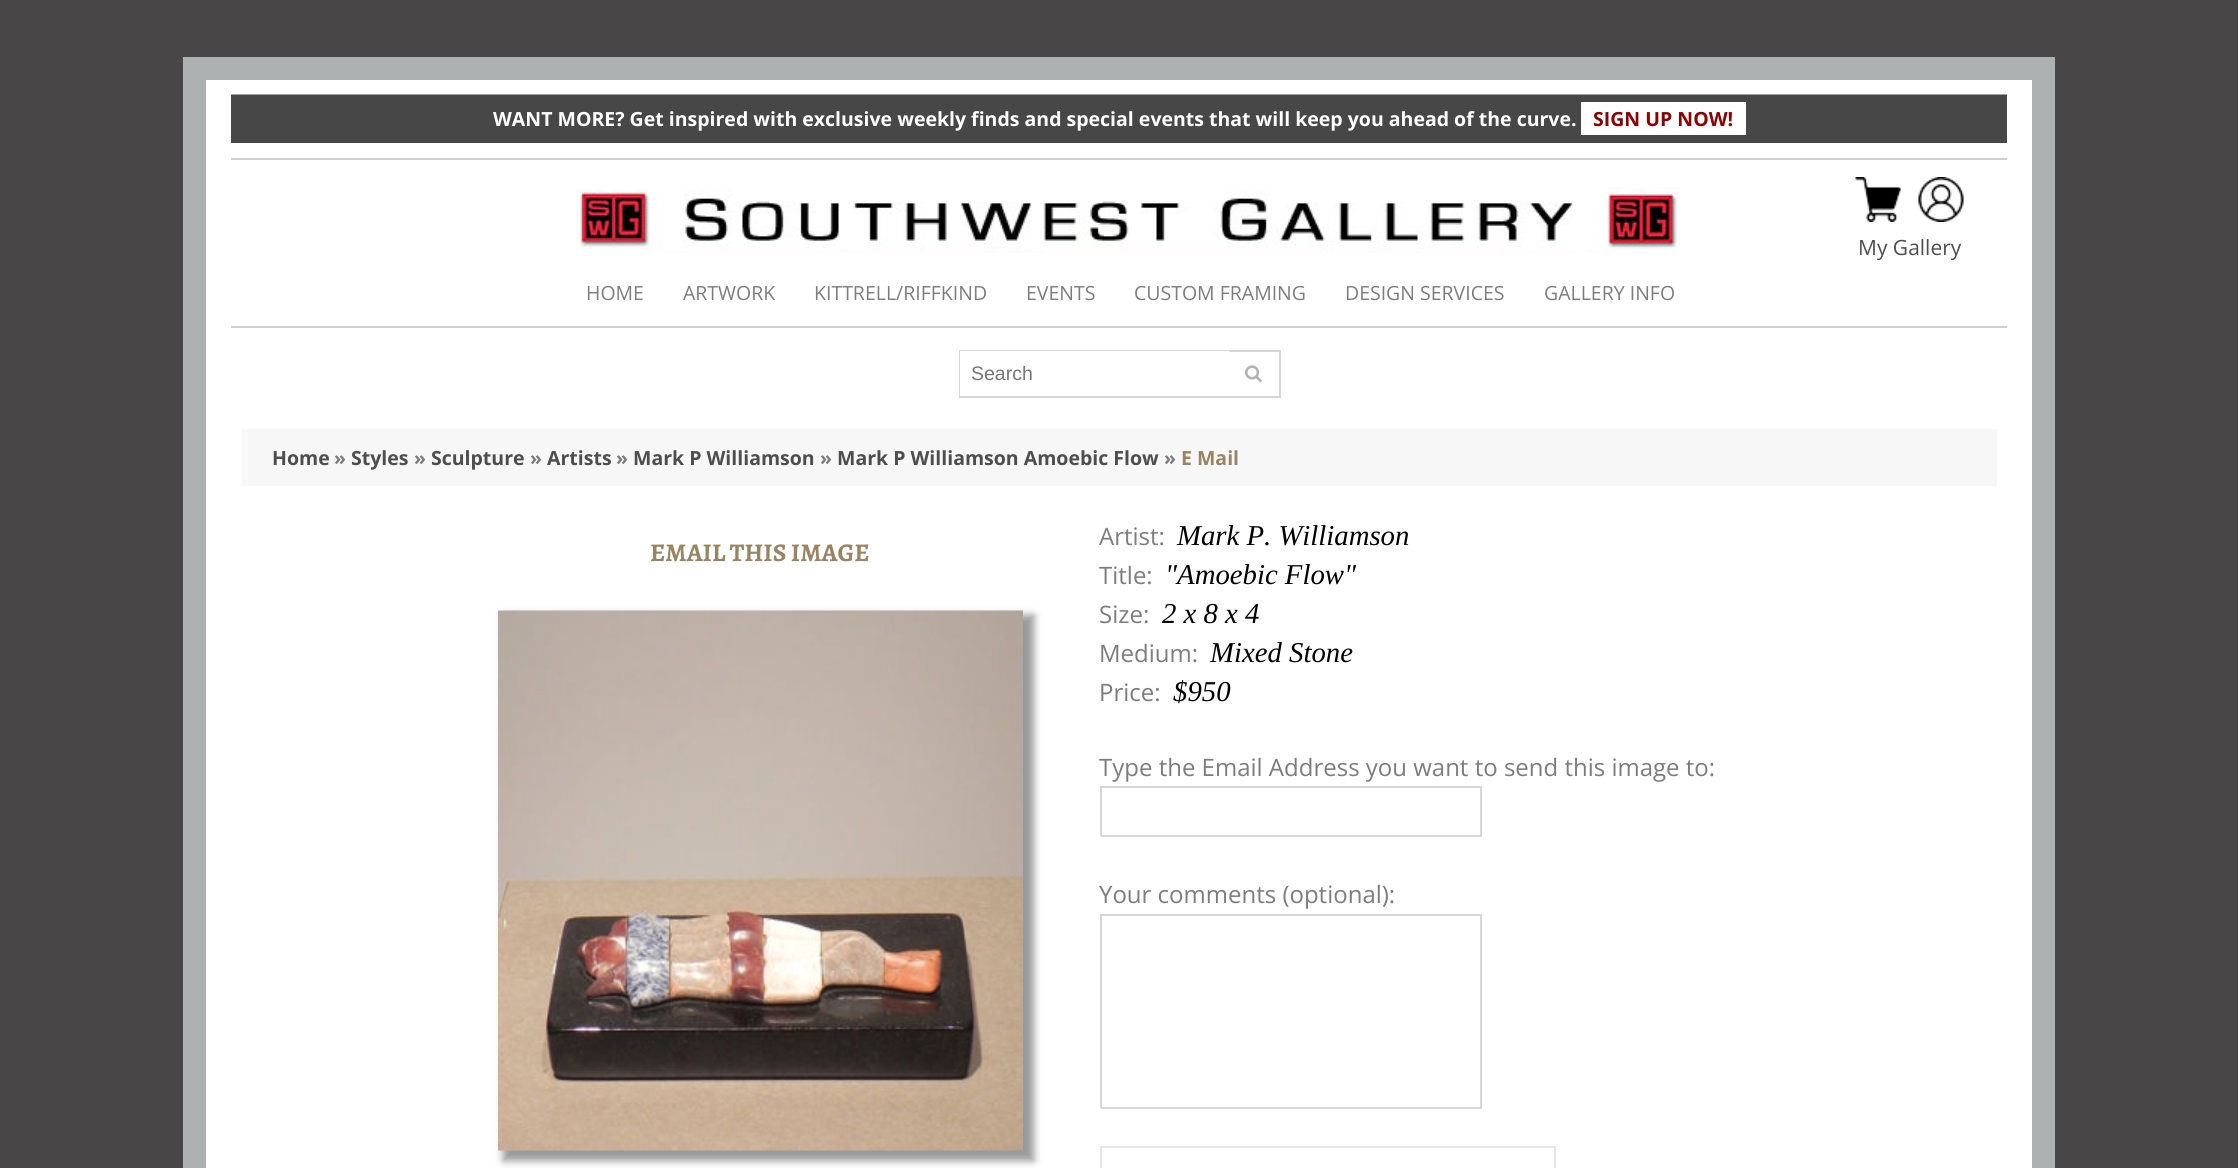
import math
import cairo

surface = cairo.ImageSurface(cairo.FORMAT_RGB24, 2238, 1168)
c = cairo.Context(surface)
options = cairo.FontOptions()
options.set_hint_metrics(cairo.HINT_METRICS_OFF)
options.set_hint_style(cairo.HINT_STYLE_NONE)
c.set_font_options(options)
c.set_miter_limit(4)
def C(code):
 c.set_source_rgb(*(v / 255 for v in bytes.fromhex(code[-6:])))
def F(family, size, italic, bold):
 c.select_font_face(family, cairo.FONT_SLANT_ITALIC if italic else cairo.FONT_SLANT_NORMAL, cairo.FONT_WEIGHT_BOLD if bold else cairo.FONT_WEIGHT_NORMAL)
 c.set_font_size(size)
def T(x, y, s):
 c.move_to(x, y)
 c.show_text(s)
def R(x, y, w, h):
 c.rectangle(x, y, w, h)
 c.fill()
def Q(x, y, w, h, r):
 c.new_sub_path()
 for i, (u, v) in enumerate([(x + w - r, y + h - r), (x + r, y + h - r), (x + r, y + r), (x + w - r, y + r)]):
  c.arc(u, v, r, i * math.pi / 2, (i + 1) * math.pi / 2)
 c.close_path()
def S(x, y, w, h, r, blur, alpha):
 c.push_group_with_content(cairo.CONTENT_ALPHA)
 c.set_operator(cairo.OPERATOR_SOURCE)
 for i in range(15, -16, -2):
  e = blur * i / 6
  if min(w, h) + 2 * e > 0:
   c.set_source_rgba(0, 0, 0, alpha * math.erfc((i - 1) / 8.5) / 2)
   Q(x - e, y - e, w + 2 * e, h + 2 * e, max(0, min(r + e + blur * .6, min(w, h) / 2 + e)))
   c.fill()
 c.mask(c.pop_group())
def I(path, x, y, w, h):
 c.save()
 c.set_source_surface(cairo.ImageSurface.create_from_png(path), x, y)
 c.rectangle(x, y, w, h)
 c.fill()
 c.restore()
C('484646')
c.paint()
C('ffffff')
c.rectangle(194.5,68.5,1849,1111)
c.fill_preserve()
C('adb1b1')
c.set_line_width(23)
c.stroke()
C('484747')
R(231,95,1776,48)
I('1.png',231,94,1776,1)
F('Open Sans',19.5,0,1)
C('ffffff')
T(493,126,'WANT MORE? Get inspired with exclusive weekly finds and special events that will keep you ahead of the curve.')
R(1581,102,165,33)
C('8b0000')
T(1593,126,'SIGN UP NOW!')
C('d1d1d1')
R(231,158,1776,2)
R(231,326,1776,2)
I('2.png',576,187,1104,66)
I('3.png',1855,177,46,45)
I('4.png',1918,177,46,45)
F('Open Sans',21,0,0)
C('4e4e4e')
T(1858,255,'My Gallery')
F('Open Sans',19.5,0,0)
C('7d7d7d')
T(586,300,'HOME')
T(683,300,'ARTWORK')
T(814,300,'KITTRELL/RIFFKIND')
T(1026,300,'EVENTS')
T(1134,300,'CUSTOM FRAMING')
T(1345,300,'DESIGN SERVICES')
T(1544,300,'GALLERY INFO')
c.rectangle(960,351,320,46)
C('d7d7d7')
c.set_line_width(2)
c.stroke()
C('ffffff')
R(960,351,269,45)
F('Liberation Sans',19.5,0,0)
C('757575')
T(971,380,'Search')
I('5.png',1245,365,17,17)
C('f7f7f7')
R(242,429,1755,57)
F('Open Sans',19.5,0,1)
C('4e4e4e')
T(272,465,'Home')
C('7d7d7d')
T(334,465,'»')
C('4e4e4e')
T(351,465,'Styles')
C('7d7d7d')
T(414,465,'»')
C('4e4e4e')
T(431,465,'Sculpture')
C('7d7d7d')
T(530,465,'»')
C('4e4e4e')
T(547,465,'Artists')
C('7d7d7d')
T(616,465,'»')
C('4e4e4e')
T(633,465,'Mark P Williamson')
C('7d7d7d')
T(820,465,'»')
C('4e4e4e')
T(837,465,'Mark P Williamson Amoebic Flow')
C('7d7d7d')
T(1164,465,'»')
C('978564')
T(1181,465,'E Mail')
F('Alegreya SC',25.5,0,1)
T(650,561,'EMAIL THIS IMAGE')
C('999999')
S(503,615,531,546,0,4,1)
I('6.png',498,610,525,541)
F('Open Sans',24,0,0)
C('7d7d7d')
T(1099,545,'Artist:')
F('Liberation Serif',28.75,1,0)
C('000000')
T(1177,545,'Mark P. Williamson')
F('Open Sans',24,0,0)
C('7d7d7d')
T(1099,584,'Title:')
F('Liberation Serif',28.75,1,0)
C('000000')
T(1165,584,'"Amoebic Flow"')
F('Open Sans',24,0,0)
C('7d7d7d')
T(1099,623,'Size:')
F('Liberation Serif',28.75,1,0)
C('000000')
T(1162,623,'2 x 8 x 4')
F('Open Sans',24,0,0)
C('7d7d7d')
T(1099,662,'Medium:')
F('Liberation Serif',28.75,1,0)
C('000000')
T(1210,662,'Mixed Stone')
F('Open Sans',24,0,0)
C('7d7d7d')
T(1099,701,'Price:')
F('Liberation Serif',28.75,1,0)
C('000000')
T(1173,701,'$950')
F('Open Sans',24,0,0)
C('7d7d7d')
T(1099,776,'Type the Email Address you want to send this image to:')
c.rectangle(1101,787,380,49)
C('d7d7d7')
c.stroke()
C('7d7d7d')
T(1099,903,'Your comments (optional):')
c.rectangle(1101,915,380,193)
C('d7d7d7')
c.stroke()
c.rectangle(1101,1147,454,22)
C('e6e6e6')
c.stroke()
surface.write_to_png('o.png')
